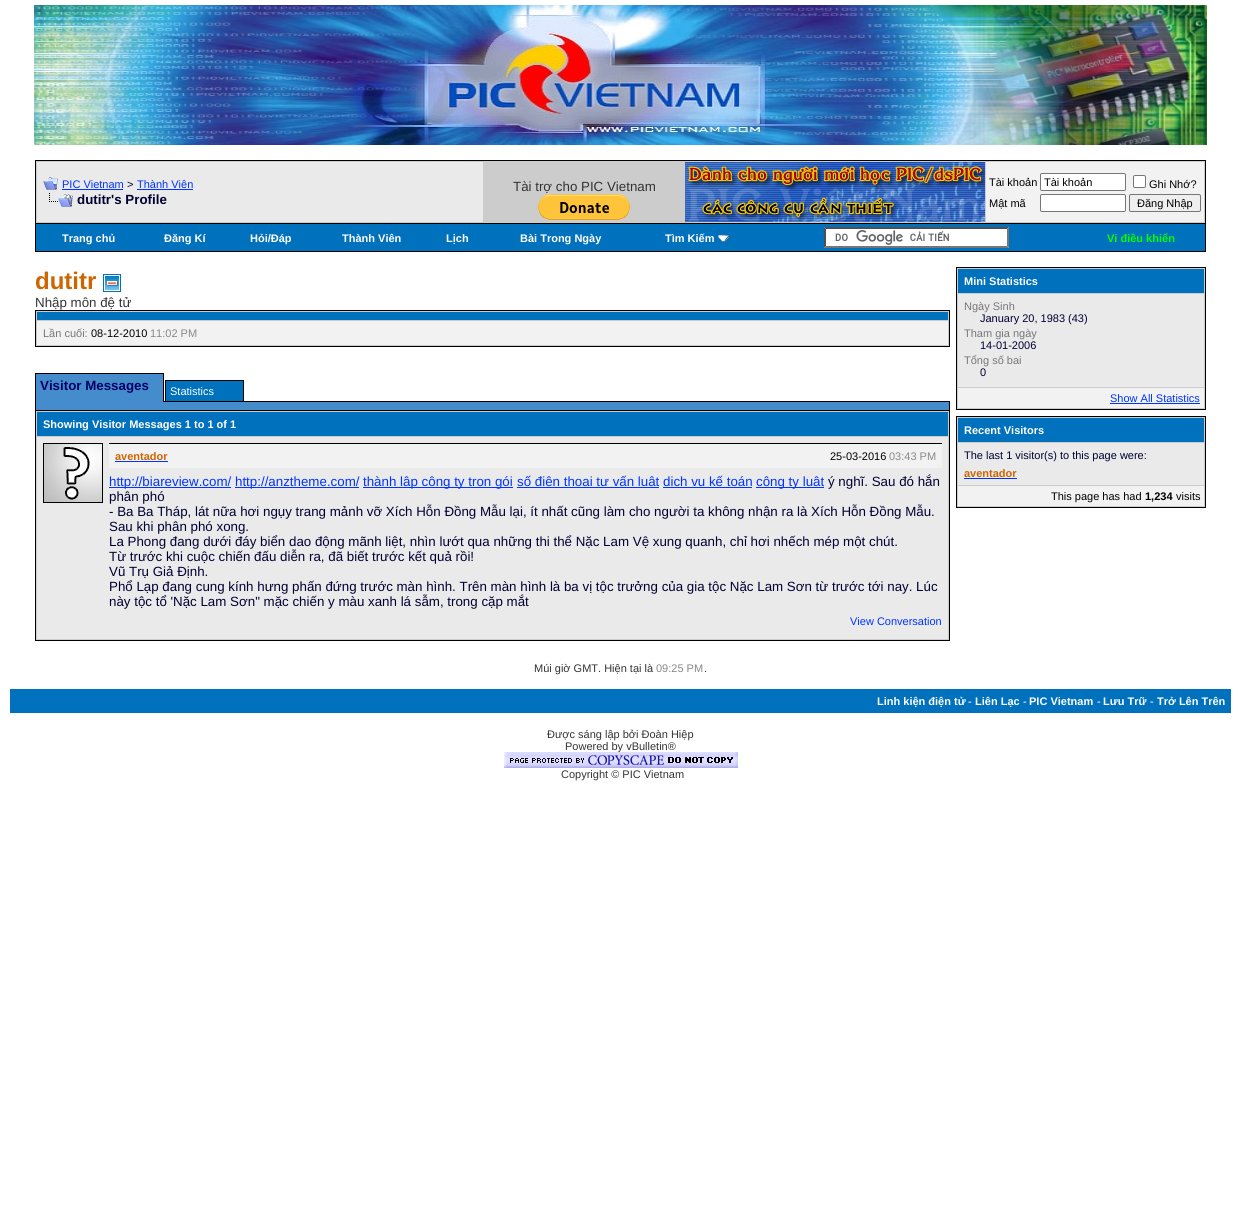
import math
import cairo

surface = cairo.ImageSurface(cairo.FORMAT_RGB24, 1241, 1221)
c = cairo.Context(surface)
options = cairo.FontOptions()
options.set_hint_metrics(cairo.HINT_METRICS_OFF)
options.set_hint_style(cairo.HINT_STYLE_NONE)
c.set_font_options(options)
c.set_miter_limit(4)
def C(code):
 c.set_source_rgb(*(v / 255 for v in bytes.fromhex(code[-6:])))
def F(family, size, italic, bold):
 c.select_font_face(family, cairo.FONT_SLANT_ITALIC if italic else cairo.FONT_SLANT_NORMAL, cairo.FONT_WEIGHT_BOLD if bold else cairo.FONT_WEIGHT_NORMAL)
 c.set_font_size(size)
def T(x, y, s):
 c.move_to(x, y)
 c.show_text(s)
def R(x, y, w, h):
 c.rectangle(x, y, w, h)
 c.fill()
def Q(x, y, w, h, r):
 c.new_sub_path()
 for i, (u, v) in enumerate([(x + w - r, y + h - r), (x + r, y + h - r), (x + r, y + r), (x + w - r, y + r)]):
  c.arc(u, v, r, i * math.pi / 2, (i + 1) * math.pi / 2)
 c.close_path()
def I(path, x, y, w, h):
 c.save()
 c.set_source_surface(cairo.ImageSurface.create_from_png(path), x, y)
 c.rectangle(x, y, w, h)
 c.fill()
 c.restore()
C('ffffff')
c.paint()
I('1.png',34,5,1173,140)
C('cccccc')
c.rectangle(35.5,160.5,1170,63)
c.fill_preserve()
C('000000')
c.set_line_width(1)
c.stroke()
C('eaeaea')
R(37,162,446,60)
I('2.png',43,177,15,13)
F('Liberation Sans',11,0,0)
C('0033ff')
T(62,188,'PIC Vietnam')
R(62,189,61,1)
C('000033')
T(127,188,'>')
C('0033ff')
T(137,188,'Thành Viên')
R(137,189,56,1)
I('3.png',49,193,24,14)
F('Liberation Sans',13.33,0,1)
C('000033')
T(77,204,'dutitr\'s Profile')
F('Liberation Sans',13.33,0,0)
C('333333')
T(513,191,'Tài trợ cho PIC Vietnam')
I('4.png',538,194,92,26)
I('5.png',685,162,300,60)
C('f2f2f2')
R(986,162,218,60)
F('Liberation Sans',11,0,0)
C('000000')
T(989,186,'Tài khoản')
C('ffffff')
Q(1040.5,173.5,85,17,1.5)
c.fill_preserve()
C('767676')
c.stroke()
C('000000')
T(1044,186,'Tài khoản')
C('ffffff')
Q(1133.5,175.5,12,12,1.5)
c.fill_preserve()
C('767676')
c.stroke()
C('000000')
T(1149,188,'Ghi Nhớ?')
T(989,207,'Mật mã')
C('ffffff')
Q(1040.5,194.5,85,17,1.5)
c.fill_preserve()
C('767676')
c.stroke()
C('efefef')
Q(1129.5,194.5,71,17,1.5)
c.fill_preserve()
C('767676')
c.stroke()
C('000000')
T(1137,207,'Ðăng Nhập')
R(1205,224,1,28)
R(35,251,1171,1)
R(35,224,1,28)
C('0071bc')
R(36,224,1169,27)
F('Liberation Sans',11,0,1)
C('ffffff')
T(62,242,'Trang chủ')
T(164,242,'Đăng Kí')
T(250,242,'Hỏi/Ðáp')
T(342,242,'Thành Viên')
T(446,242,'Lịch')
T(520,242,'Bài Trong Ngày')
T(665,242,'Tìm Kiếm')
I('6.png',718,235,11,7)
R(824,227,185,21)
I('7.png',835,230,114,15)
C('4f4f4f')
c.new_path()
c.move_to(824,227)
c.line_to(1009,227)
c.line_to(1007,229)
c.line_to(826,229)
c.close_path()
c.fill()
C('767676')
c.new_path()
c.move_to(1009,227)
c.line_to(1009,248)
c.line_to(1007,246)
c.line_to(1007,229)
c.close_path()
c.fill()
c.new_path()
c.move_to(1009,248)
c.line_to(824,248)
c.line_to(826,246)
c.line_to(1007,246)
c.close_path()
c.fill()
C('4f4f4f')
c.new_path()
c.move_to(824,248)
c.line_to(824,227)
c.line_to(826,229)
c.line_to(826,246)
c.close_path()
c.fill()
C('00ff00')
T(1107,242,'Vi điều khiển')
F('Liberation Sans',24,0,1)
C('cc6600')
T(35,289,'dutitr')
I('8.png',103,274,18,18)
F('Liberation Sans',13.33,0,0)
C('333333')
T(35,307,'Nhập môn đệ tử')
C('cccccc')
c.rectangle(35.5,310.5,914,36)
c.fill_preserve()
C('000000')
c.stroke()
C('0071bc')
R(37,312,911,8)
C('f2f2f2')
R(37,321,911,24)
F('Liberation Sans',11,0,0)
C('777777')
T(43,337,'Lần cuối:')
C('000000')
T(91,337,'08-12-2010')
C('888888')
T(150,337,'11:02 PM')
C('448ccb')
R(36,374,127,28)
C('000000')
R(35,373,129,1)
R(163,373,1,29)
R(35,401,1,9)
R(35,373,1,29)
F('Liberation Sans',13.33,0,1)
C('000066')
T(40,390,'Visitor Messages')
C('000000')
R(164,401,786,1)
C('0071bc')
c.rectangle(165.5,380.5,78,21)
c.fill_preserve()
C('000000')
c.stroke()
F('Liberation Sans',11,0,0)
C('ffffff')
T(170,395,'Statistics')
C('448ccb')
R(36,402,913,8)
C('000000')
R(949,401,1,9)
C('cccccc')
c.rectangle(35.5,410.5,914,230)
c.fill_preserve()
C('000000')
c.stroke()
C('0071bc')
R(37,412,911,24)
F('Liberation Sans',11,0,1)
C('ffffff')
T(43,428,'Showing Visitor Messages 1 to 1 of 1')
C('eaeaea')
R(37,437,911,202)
I('9.png',43,443,60,60)
C('000000')
R(109,443,833,1)
C('f2f2f2')
R(109,444,833,24)
C('cc6600')
T(115,460,'aventador')
C('0033ff')
R(115,461,53,1)
F('Liberation Sans',11,0,0)
C('000000')
T(830,460,'25-03-2016')
C('888888')
T(889,460,'03:43 PM')
C('0033ff')
R(109,487,122,1)
F('Liberation Sans',13.33,0,0)
T(109,486,'http://biareview.com/')
R(235,487,124,1)
T(235,486,'http://anztheme.com/')
R(363,487,150,1)
T(363,486,'thành lập công ty trọn gói')
R(517,487,142,1)
T(517,486,'số điện thoại tư vấn luật')
R(663,487,89,1)
T(663,486,'dịch vụ kế toán')
R(756,487,68,1)
T(756,486,'công ty luật')
C('000033')
T(828,486,'ý nghĩ. Sau đó hắn')
T(109,501,'phân phó')
T(109,516,'- Ba Ba Tháp, lát nữa hơi ngụy trang mảnh vỡ Xích Hỗn Đồng Mẫu lại, ít nhất cũng làm cho người ta không nhận ra là Xích Hỗn Đồng Mẫu.')
T(109,531,'Sau khi phân phó xong.')
T(109,546,'La Phong đang dưới đáy biển dao động mãnh liệt, nhìn lướt qua những thi thể Nặc Lam Vệ xung quanh, chỉ hơi nhếch mép một chút.')
T(109,561,'Từ trước khi cuộc chiến đấu diễn ra, đã biết trước kết quả rồi!')
T(109,576,'Vũ Trụ Giả Định.')
T(109,591,'Phổ Lạp đang cung kính hưng phấn đứng trước màn hình. Trên màn hình là ba vị tộc trưởng của gia tộc Nặc Lam Sơn từ trước tới nay. Lúc')
T(109,606,'này tộc tổ \'Nặc Lam Sơn" mặc chiến y màu xanh lá sẫm, trong cặp mắt')
F('Liberation Sans',11,0,0)
C('0033ff')
T(850,625,'View Conversation')
C('cccccc')
c.rectangle(956.5,267.5,249,142)
c.fill_preserve()
C('000000')
c.stroke()
C('0071bc')
R(958,269,246,24)
F('Liberation Sans',11,0,1)
C('ffffff')
T(964,285,'Mini Statistics')
C('eaeaea')
R(958,294,246,93)
F('Liberation Sans',11,0,0)
C('777777')
T(964,310,'Ngày Sinh')
C('000033')
T(980,322,'January 20, 1983 (43)')
C('777777')
T(964,337,'Tham gia ngày')
C('000033')
T(980,349,'14-01-2006')
C('777777')
T(964,364,'Tổng số bai')
C('000033')
T(980,376,'0')
C('f2f2f2')
R(958,388,246,20)
C('0033ff')
T(1110,402,'Show All Statistics')
R(1110,403,90,1)
C('cccccc')
c.rectangle(956.5,416.5,249,91)
c.fill_preserve()
C('000000')
c.stroke()
C('0071bc')
R(958,418,246,24)
F('Liberation Sans',11,0,1)
C('ffffff')
T(964,434,'Recent Visitors')
C('eaeaea')
R(958,443,246,42)
F('Liberation Sans',11,0,0)
C('000033')
T(964,459,'The last 1 visitor(s) to this page were:')
F('Liberation Sans',11,0,1)
C('cc6600')
T(964,477,'aventador')
C('0033ff')
R(964,478,53,1)
C('f2f2f2')
R(958,486,246,20)
F('Liberation Sans',11,0,0)
C('000000')
T(1051,500,'This page has had')
F('Liberation Sans',11,0,1)
T(1145,500,'1,234')
F('Liberation Sans',11,0,0)
T(1176,500,'visits')
C('333333')
T(534,672,'Múi giờ GMT. Hiện tại là')
C('888888')
T(656,672,'09:25 PM')
C('333333')
T(704,672,'.')
C('0071bc')
R(10,689,1221,24)
F('Liberation Sans',11,0,1)
C('ffffff')
T(877,705,'Linh kiện điện tử')
C('ccccff')
T(968,705,'-')
C('ffffff')
T(975,705,'Liên Lạc')
C('ccccff')
T(1023,705,'-')
C('ffffff')
T(1029,705,'PIC Vietnam')
C('ccccff')
T(1097,705,'-')
C('ffffff')
T(1103,705,'Lưu Trữ')
C('ccccff')
T(1150,705,'-')
C('ffffff')
T(1157,705,'Trở Lên Trên')
F('Liberation Sans',11,0,0)
C('333333')
T(547,738,'Được sáng lập bởi Đoàn Hiệp')
T(565,750,'Powered by vBulletin®')
I('10.png',504,752,234,16)
T(561,778,'Copyright © PIC Vietnam')
surface.write_to_png('o.png')
